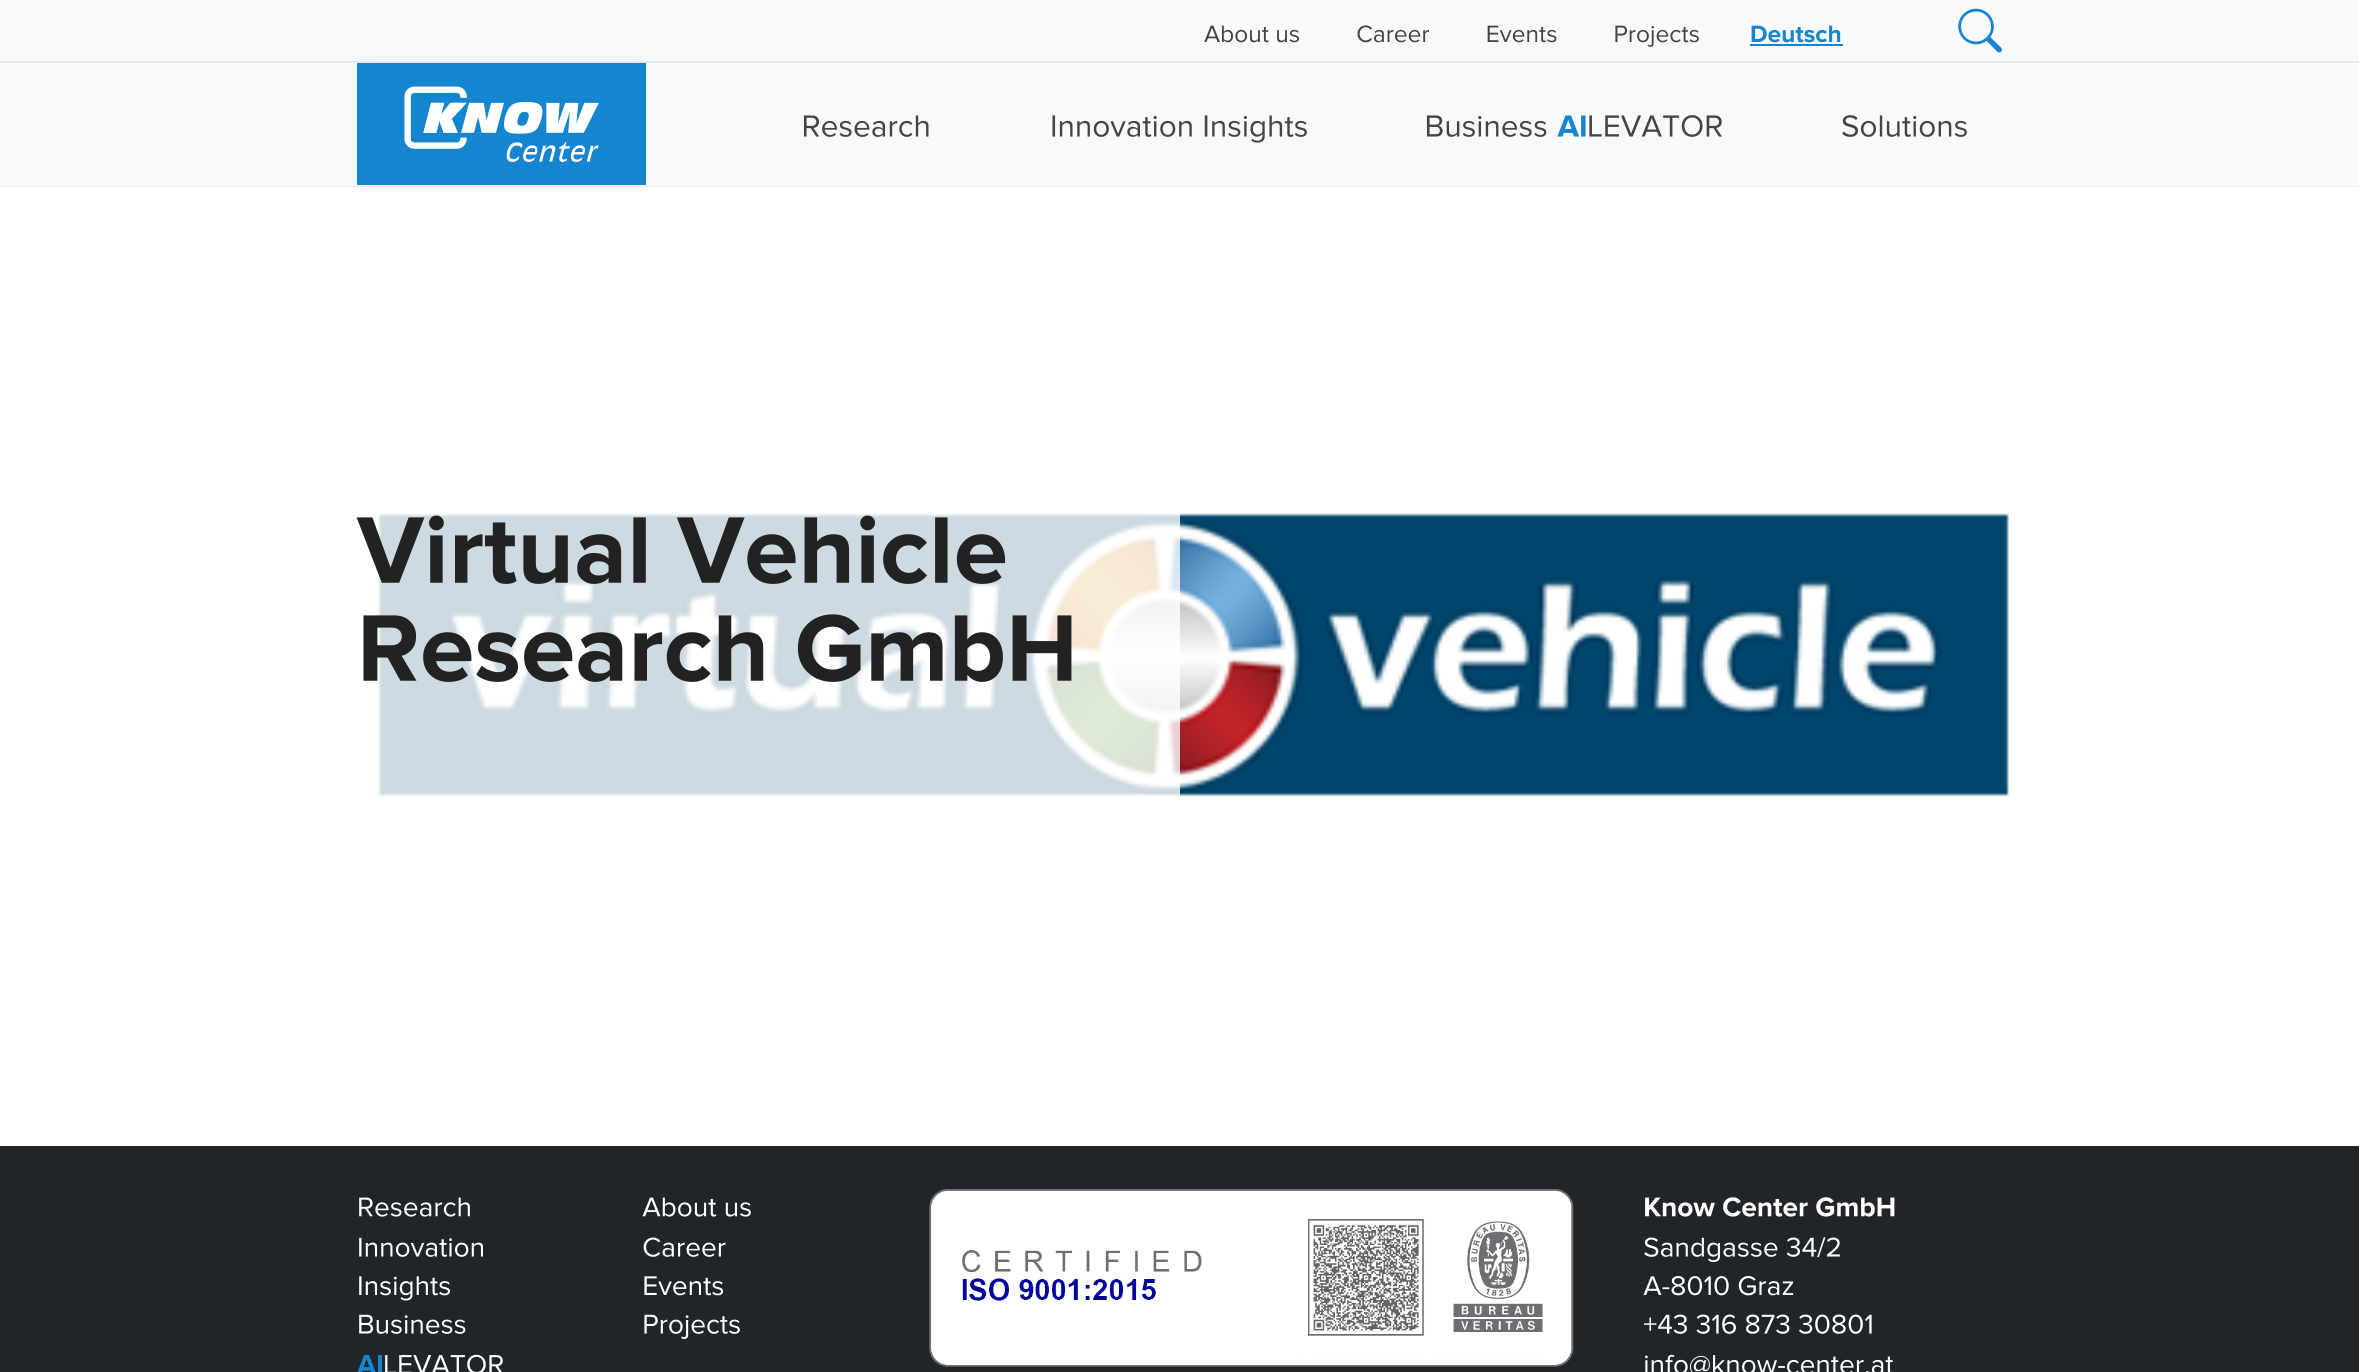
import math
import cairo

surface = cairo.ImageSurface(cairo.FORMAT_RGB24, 2359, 1372)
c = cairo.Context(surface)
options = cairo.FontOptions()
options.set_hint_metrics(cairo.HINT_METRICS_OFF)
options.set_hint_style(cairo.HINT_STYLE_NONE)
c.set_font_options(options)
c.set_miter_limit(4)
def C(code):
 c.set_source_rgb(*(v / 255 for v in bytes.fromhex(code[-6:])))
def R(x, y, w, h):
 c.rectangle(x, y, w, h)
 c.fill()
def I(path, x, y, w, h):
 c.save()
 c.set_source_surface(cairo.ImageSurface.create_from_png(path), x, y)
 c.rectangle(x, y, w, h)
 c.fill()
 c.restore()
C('ffffff')
c.paint()
C('f8f9fa')
R(0,0,2359,61)
I('1.png',1204,25,95,18)
I('2.png',1357,25,73,18)
I('3.png',1487,25,70,18)
I('4.png',1615,25,84,22)
I('5.png',1751,25,90,18)
C('1485ce')
R(1750,44,93,2)
I('6.png',1958,8,44,45)
C('f8f9fa')
R(0,63,2359,123)
C('e7eaf0')
R(0,61,2359,2)
R(0,186,2359,1)
I('7.png',357,63,289,122)
I('8.png',803,115,126,22)
I('9.png',1052,115,255,28)
I('10.png',1426,115,121,22)
I('11.png',1557,115,29,22)
I('12.png',1589,115,133,22)
I('13.png',1842,115,125,22)
I('14.png',0,187,2359,610)
c.set_source_rgba(1,1,1,0.8)
R(378,513,802,284)
I('15.png',356,515,650,69)
I('16.png',363,614,709,68)
C('212529')
R(0,1146,2359,226)
I('17.png',359,1197,111,20)
I('18.png',359,1237,124,20)
I('19.png',359,1276,91,25)
I('20.png',359,1314,107,20)
I('21.png',357,1355,25,17)
I('22.png',385,1354,118,18)
I('23.png',642,1197,109,20)
I('24.png',643,1237,83,20)
I('25.png',644,1276,80,20)
I('26.png',644,1314,96,25)
I('27.png',929,1189,645,178)
I('28.png',1645,1197,250,20)
I('29.png',1644,1237,196,25)
I('30.png',1643,1276,151,20)
I('31.png',1644,1314,228,20)
I('32.png',1645,1354,248,18)
surface.write_to_png('o.png')
